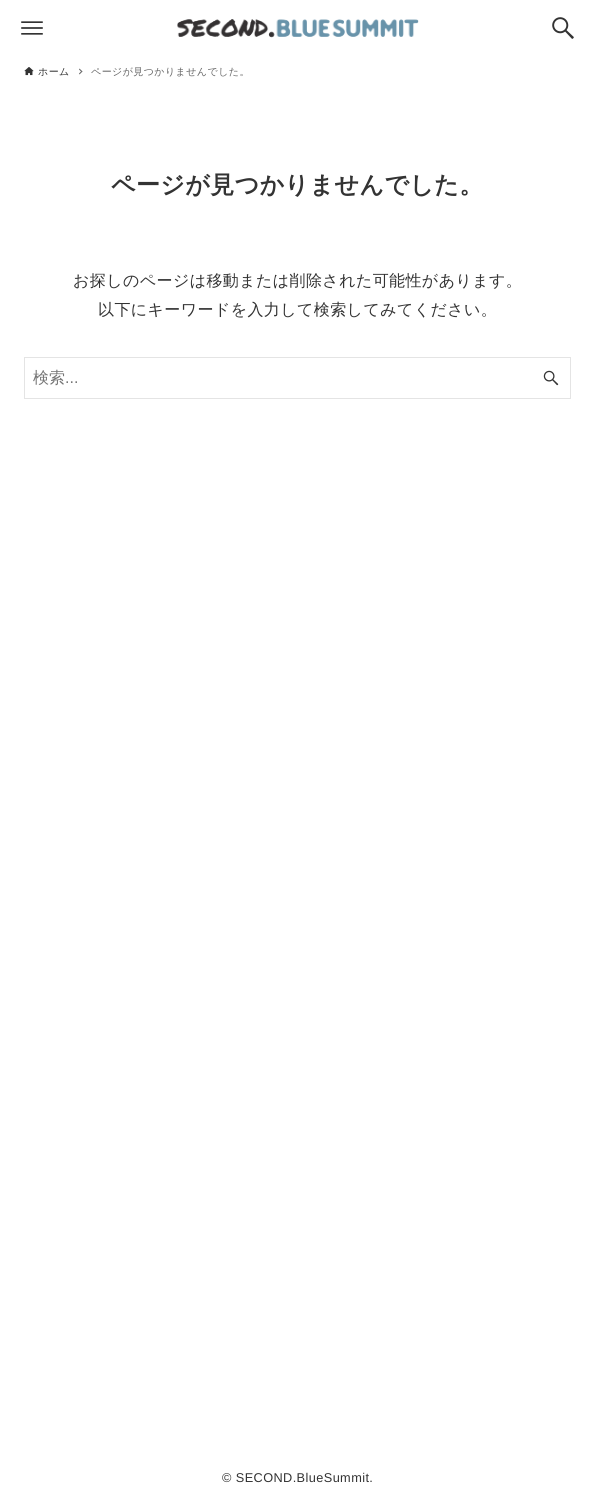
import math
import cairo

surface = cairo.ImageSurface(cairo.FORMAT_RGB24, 595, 1503)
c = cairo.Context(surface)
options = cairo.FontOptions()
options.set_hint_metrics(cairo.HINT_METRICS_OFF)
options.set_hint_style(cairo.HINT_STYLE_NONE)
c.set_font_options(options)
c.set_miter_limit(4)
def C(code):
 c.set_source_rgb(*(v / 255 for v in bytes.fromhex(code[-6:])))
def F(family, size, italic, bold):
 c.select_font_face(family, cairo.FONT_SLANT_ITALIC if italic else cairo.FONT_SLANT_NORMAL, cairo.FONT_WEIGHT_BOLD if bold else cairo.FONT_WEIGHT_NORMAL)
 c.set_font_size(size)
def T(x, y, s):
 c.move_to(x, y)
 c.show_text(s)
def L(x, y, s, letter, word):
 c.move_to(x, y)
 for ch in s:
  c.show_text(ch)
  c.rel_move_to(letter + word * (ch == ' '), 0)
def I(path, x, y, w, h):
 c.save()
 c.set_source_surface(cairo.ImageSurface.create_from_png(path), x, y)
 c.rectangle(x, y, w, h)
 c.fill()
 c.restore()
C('ffffff')
c.paint()
I('1.png',21,21,22,14)
I('2.png',177,19,242,19)
I('3.png',552,17,22,22)
I('4.png',24,67,10,9)
F('WenQuanYi Zen Hei Medium',10,0,0)
C('333333')
L(38,75,'ホーム',.4,0)
C('666666')
c.new_path()
c.move_to(79.5,68.5)
c.line_to(82.5,71.5)
c.line_to(81.5,72)
c.line_to(79,69.5)
c.close_path()
c.fill()
c.new_path()
c.move_to(81.5,71)
c.line_to(82.5,71.5)
c.line_to(79.5,74.5)
c.line_to(79,73.5)
c.close_path()
c.fill()
L(91,75,'ページが見つかりませんでした。',.4,0)
F('WenQuanYi Zen Hei',24,0,1)
C('333333')
L(111,193,'ページが見つかりませんでした。',.4,0)
F('WenQuanYi Zen Hei Medium',16,0,0)
L(73,286,'お探しのページは移動または削除された可能性があります。',.4,0)
L(98,315,'以下にキーワードを入力して検索してみてください。',.4,0)
c.rectangle(24.5,357.5,546,41)
C('e4e4e4')
c.set_line_width(1)
c.stroke()
C('757575')
T(33,383,'検索')
F('Liberation Sans',16,0,0)
T(65,383,'...')
I('5.png',543,370,16,16)
F('Liberation Sans',12.75,0,0)
C('333333')
L(222,1482,'© SECOND.BlueSummit.',.4,0)
surface.write_to_png('o.png')
